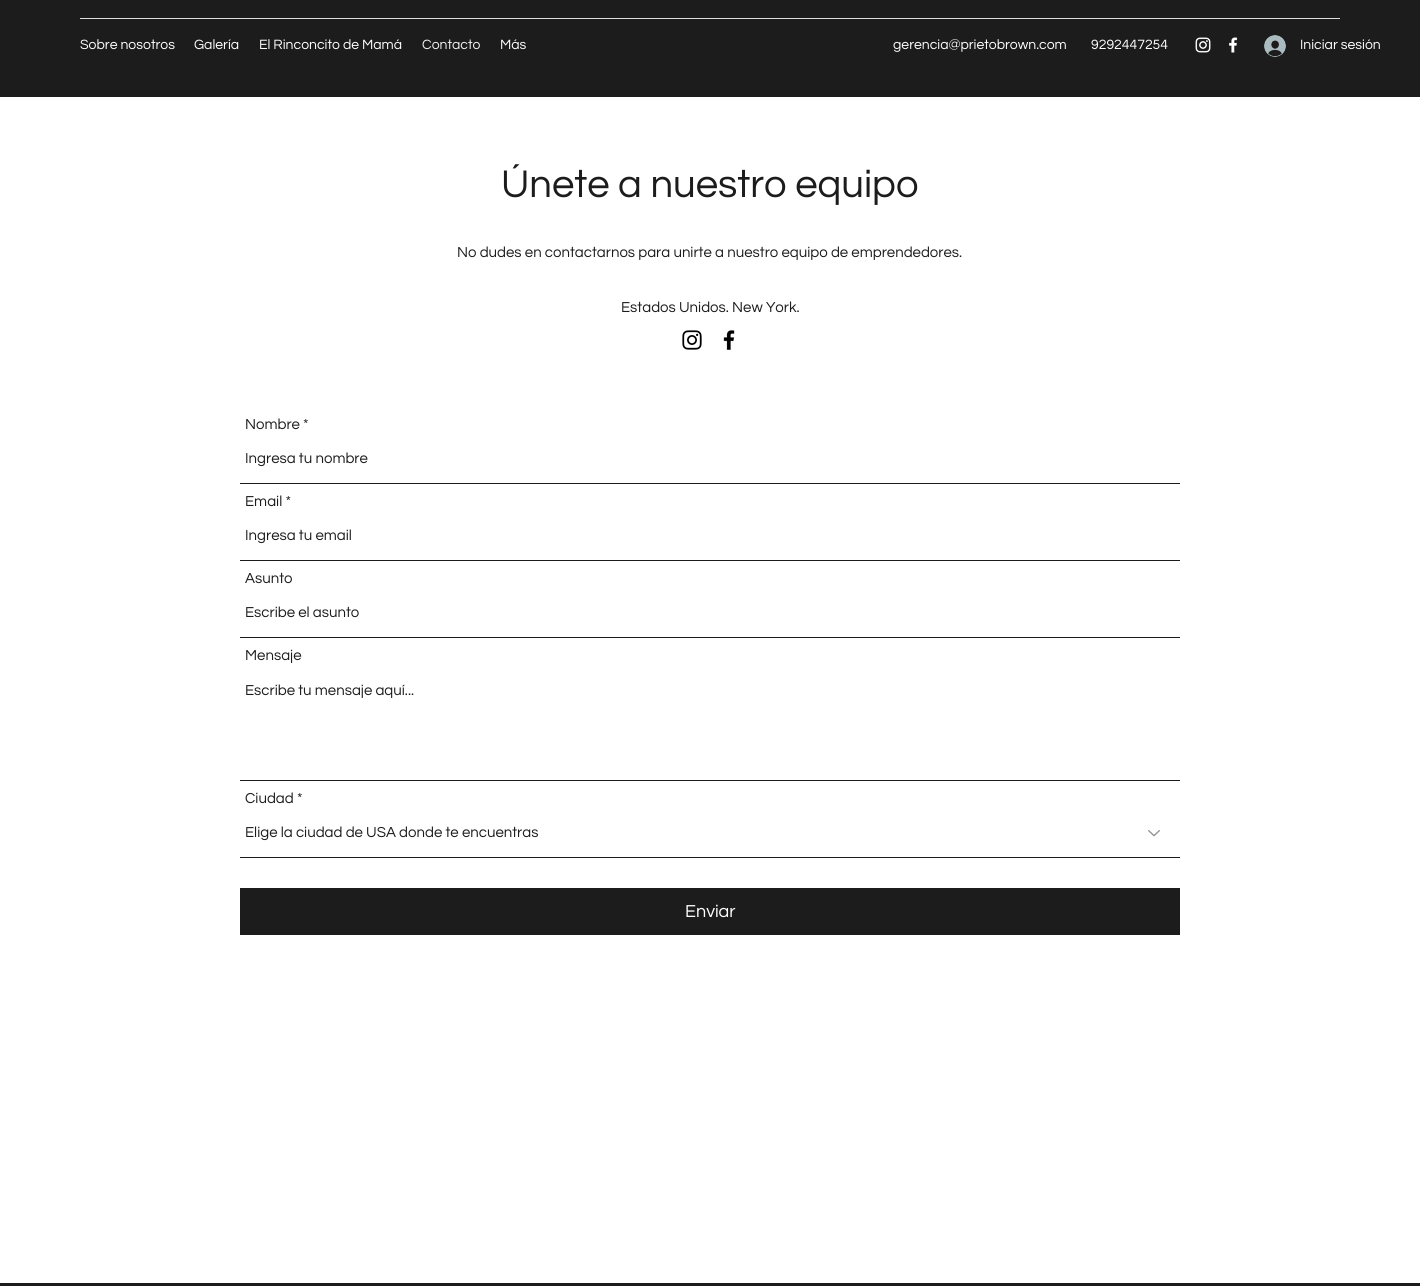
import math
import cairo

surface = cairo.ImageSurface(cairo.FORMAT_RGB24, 1420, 1286)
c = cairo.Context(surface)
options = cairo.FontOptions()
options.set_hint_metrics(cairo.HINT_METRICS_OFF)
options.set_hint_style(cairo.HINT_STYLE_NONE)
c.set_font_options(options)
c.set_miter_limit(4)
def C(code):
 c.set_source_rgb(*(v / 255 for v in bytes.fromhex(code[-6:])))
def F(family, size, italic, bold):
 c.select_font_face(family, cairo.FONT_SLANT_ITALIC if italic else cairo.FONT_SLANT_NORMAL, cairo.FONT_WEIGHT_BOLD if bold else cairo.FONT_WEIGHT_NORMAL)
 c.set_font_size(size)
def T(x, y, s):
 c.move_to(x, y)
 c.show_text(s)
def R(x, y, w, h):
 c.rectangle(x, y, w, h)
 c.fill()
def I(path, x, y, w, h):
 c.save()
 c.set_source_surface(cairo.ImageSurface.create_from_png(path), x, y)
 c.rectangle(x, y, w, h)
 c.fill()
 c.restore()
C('ffffff')
c.paint()
C('1c1c1c')
R(0,0,1420,97)
C('dddddd')
R(80,18,1260,1)
F('Questrial',14,0,0)
C('ffffff')
T(80,49,'Sobre nosotros')
T(194,49,'Galería')
T(259,49,'El Rinconcito de Mamá')
C('f2f2f2')
T(422,49,'Contacto')
C('ffffff')
T(500,49,'Más')
T(893,49,'gerencia@prietobrown.com')
T(1091,49,'9292447254')
I('1.png',1195,37,16,16)
I('2.png',1229,37,9,16)
I('3.png',1264,35,22,22)
T(1300,49,'Iniciar sesión')
F('Questrial',40,0,0)
C('1c1c1c')
T(501,197,'Únete a nuestro equipo')
F('Questrial',15,0,0)
T(457,257,'No dudes en contactarnos para unirte a nuestro equipo de emprendedores.')
T(621,312,'Estados Unidos. New York.')
I('4.png',682,330,20,20)
I('5.png',723,330,12,20)
T(245,429,'Nombre *')
R(240,483,940,1)
T(245,463,'Ingresa tu nombre')
T(245,506,'Email *')
R(240,560,940,1)
T(245,540,'Ingresa tu email')
T(245,583,'Asunto')
R(240,637,940,1)
T(245,617,'Escribe el asunto')
T(245,660,'Mensaje')
R(240,780,940,1)
T(245,695,'Escribe tu mensaje aquí...')
T(245,803,'Ciudad *')
R(240,857,940,1)
T(245,837,'Elige la ciudad de USA donde te encuentras')
I('6.png',1148,830,12,7)
R(240,888,940,47)
F('Questrial',18,0,0)
C('ffffff')
T(685,917,'Enviar')
C('1c1c1c')
R(0,1283,1420,3)
surface.write_to_png('o.png')
